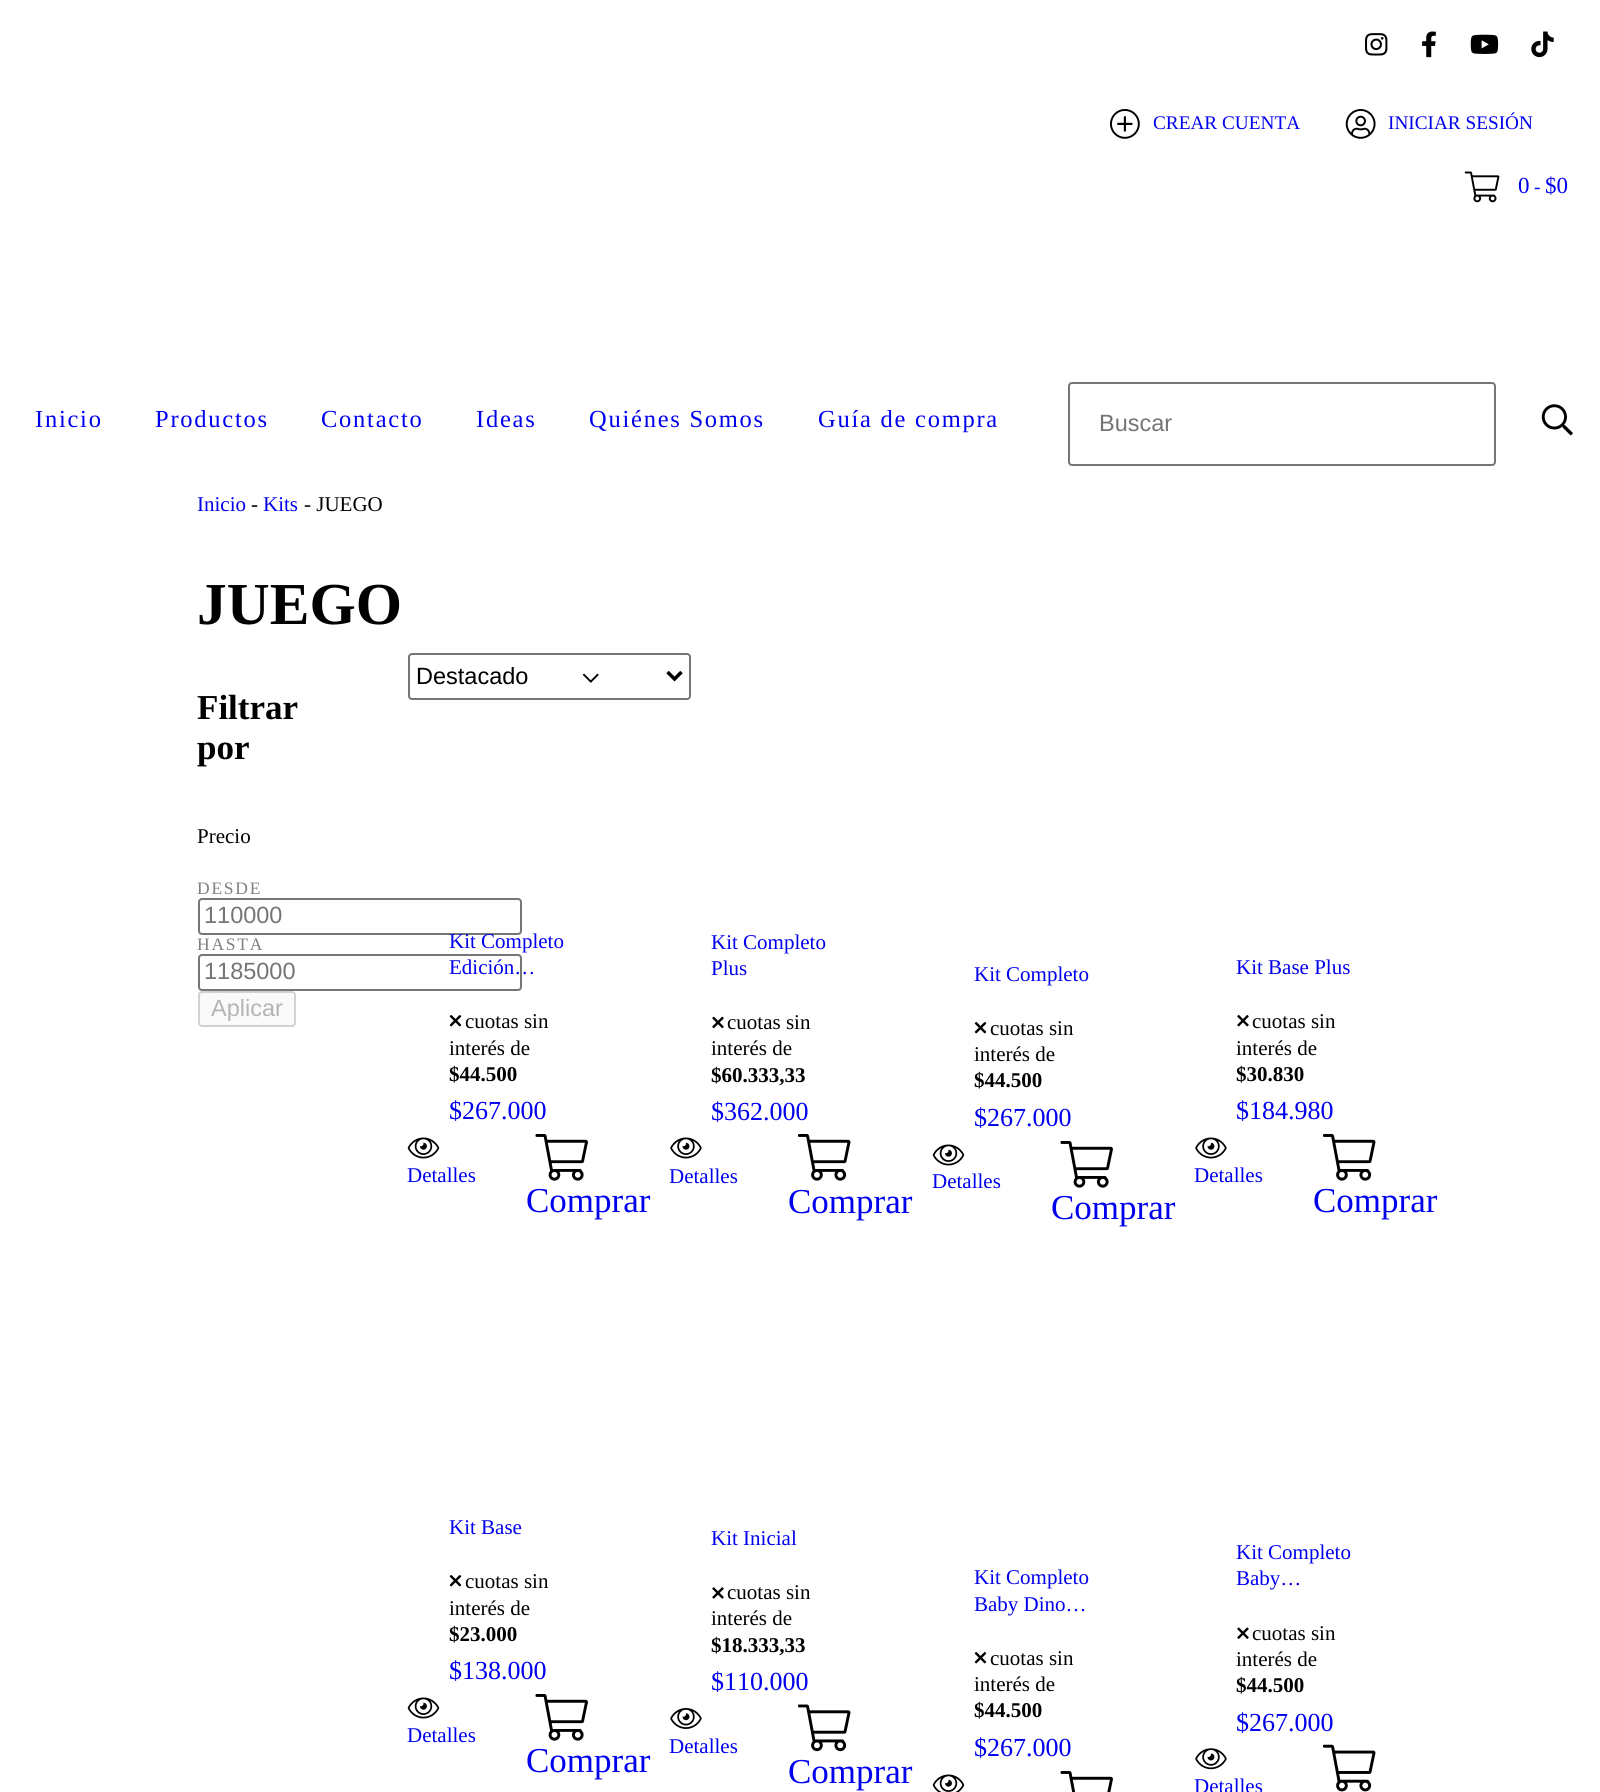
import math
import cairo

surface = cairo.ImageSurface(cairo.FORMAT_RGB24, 1600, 1792)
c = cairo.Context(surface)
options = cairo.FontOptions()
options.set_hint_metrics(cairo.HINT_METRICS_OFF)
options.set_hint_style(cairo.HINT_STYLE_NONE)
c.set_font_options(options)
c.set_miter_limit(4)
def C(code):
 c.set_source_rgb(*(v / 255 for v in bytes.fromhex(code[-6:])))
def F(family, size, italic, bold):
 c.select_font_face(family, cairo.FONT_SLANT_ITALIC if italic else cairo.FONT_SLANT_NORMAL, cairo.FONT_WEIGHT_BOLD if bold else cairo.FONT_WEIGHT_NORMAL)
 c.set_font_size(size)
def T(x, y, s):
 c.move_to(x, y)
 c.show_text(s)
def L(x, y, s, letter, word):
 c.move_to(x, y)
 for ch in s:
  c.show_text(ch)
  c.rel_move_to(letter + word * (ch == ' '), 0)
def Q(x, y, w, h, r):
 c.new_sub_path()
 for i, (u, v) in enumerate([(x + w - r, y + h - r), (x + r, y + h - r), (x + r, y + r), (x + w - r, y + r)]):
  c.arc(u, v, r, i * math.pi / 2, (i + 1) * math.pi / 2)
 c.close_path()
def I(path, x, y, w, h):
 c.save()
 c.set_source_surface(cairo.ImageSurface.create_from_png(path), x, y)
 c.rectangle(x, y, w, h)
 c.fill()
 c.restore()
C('ffffff')
c.paint()
I('1.png',1365,33,23,23)
I('2.png',1422,31,14,27)
I('3.png',1470,34,29,20)
I('4.png',1531,31,23,27)
I('5.png',1110,109,30,30)
F('Liberation Serif',19.25,0,0)
C('0000ee')
T(1153,129,'CREAR CUENTA')
I('6.png',1345,109,31,30)
T(1388,129,'INICIAR SESIÓN')
I('7.png',1464,171,36,32)
F('Liberation Serif',23,0,0)
T(1518,193,'0')
F('Liberation Serif',19.25,0,0)
T(1534,193,'-')
F('Liberation Serif',23,0,0)
T(1545,193,'$0')
F('Liberation Serif',24.5,0,0)
L(35,427,'Inicio',1.75,0)
L(155,427,'Productos',1.75,0)
L(321,427,'Contacto',1.75,0)
L(476,427,'Ideas',1.75,0)
L(589,427,'Quiénes Somos',1.75,0)
L(818,427,'Guía de compra',1.75,0)
Q(1069,383,426,82,3)
C('767676')
c.stroke()
F('Liberation Sans',23.5,0,0)
C('757575')
T(1099,431,'Buscar')
I('8.png',1541,404,32,32)
F('Liberation Serif',21,0,0)
C('0000ee')
T(197,511,'Inicio')
C('000000')
T(251,511,'-')
C('0000ee')
T(263,511,'Kits')
C('000000')
T(304,511,'- JUEGO')
F('Liberation Serif',59.5,0,1)
T(197,624,'JUEGO')
F('Liberation Serif',35,0,1)
T(197,719,'Filtrar')
T(197,759,'por')
F('Liberation Serif',21,0,0)
T(197,843,'Precio')
F('Liberation Serif',17.5,0,0)
C('808080')
L(197,894,'DESDE',1.75,0)
Q(199,899,322,35,3)
C('767676')
c.stroke()
F('Liberation Sans',23.5,0,0)
C('757575')
T(204,923,'110000')
F('Liberation Serif',17.5,0,0)
C('808080')
L(197,950,'HASTA',1.75,0)
Q(199,955,322,35,3)
C('767676')
c.stroke()
F('Liberation Sans',23.5,0,0)
C('757575')
T(204,979,'1185000')
C('fafafa')
Q(199,992,96,34,3)
c.fill_preserve()
C('d2d2d2')
c.stroke()
C('b4b4b4')
T(211,1016,'Aplicar')
Q(409,654,281,45,3)
C('767676')
c.stroke()
c.new_path()
c.move_to(667.5,672)
c.line_to(674.5,679)
c.line_to(681.5,672)
C('000000')
c.set_line_width(3.5)
c.stroke()
T(416,684,'Destacado')
I('9.png',582,673,17,10)
F('Liberation Serif',21,0,0)
C('0000ee')
T(449,948,'Kit Completo')
T(449,974,'Edición…')
C('000000')
T(465,1028,'cuotas sin')
T(449,1055,'interés de')
F('Liberation Serif',21,0,1)
T(449,1081,'$44.500')
F('Liberation Serif',26,0,0)
C('0000ee')
T(449,1119,'$267.000')
I('10.png',449,1015,13,12)
I('11.png',407,1137,33,22)
F('Liberation Serif',21,0,0)
T(407,1182,'Detalles')
I('12.png',535,1134,53,47)
F('Liberation Serif',35,0,0)
T(526,1212,'Comprar')
F('Liberation Serif',21,0,0)
T(711,949,'Kit Completo')
T(711,975,'Plus')
C('000000')
T(727,1029,'cuotas sin')
T(711,1055,'interés de')
F('Liberation Serif',21,0,1)
T(711,1082,'$60.333,33')
F('Liberation Serif',26,0,0)
C('0000ee')
T(711,1120,'$362.000')
I('13.png',712,1016,12,13)
I('14.png',670,1137,32,22)
F('Liberation Serif',21,0,0)
T(669,1183,'Detalles')
I('15.png',798,1134,53,47)
F('Liberation Serif',35,0,0)
T(788,1213,'Comprar')
F('Liberation Serif',21,0,0)
T(974,981,'Kit Completo')
C('000000')
T(990,1035,'cuotas sin')
T(974,1061,'interés de')
F('Liberation Serif',21,0,1)
T(974,1087,'$44.500')
F('Liberation Serif',26,0,0)
C('0000ee')
T(974,1126,'$267.000')
I('10.png',974,1022,13,12)
I('11.png',932,1144,33,22)
F('Liberation Serif',21,0,0)
T(932,1188,'Detalles')
I('12.png',1060,1141,53,47)
F('Liberation Serif',35,0,0)
T(1051,1219,'Comprar')
F('Liberation Serif',21,0,0)
T(1236,974,'Kit Base Plus')
C('000000')
T(1252,1028,'cuotas sin')
T(1236,1055,'interés de')
F('Liberation Serif',21,0,1)
T(1236,1081,'$30.830')
F('Liberation Serif',26,0,0)
C('0000ee')
T(1236,1119,'$184.980')
I('16.png',1237,1015,12,12)
I('14.png',1195,1137,32,22)
F('Liberation Serif',21,0,0)
T(1194,1182,'Detalles')
I('15.png',1323,1134,53,47)
F('Liberation Serif',35,0,0)
T(1313,1212,'Comprar')
F('Liberation Serif',21,0,0)
T(449,1534,'Kit Base')
C('000000')
T(465,1588,'cuotas sin')
T(449,1615,'interés de')
F('Liberation Serif',21,0,1)
T(449,1641,'$23.000')
F('Liberation Serif',26,0,0)
C('0000ee')
T(449,1679,'$138.000')
I('10.png',449,1575,13,12)
I('11.png',407,1697,33,22)
F('Liberation Serif',21,0,0)
T(407,1742,'Detalles')
I('12.png',535,1694,53,47)
F('Liberation Serif',35,0,0)
T(526,1772,'Comprar')
F('Liberation Serif',21,0,0)
T(711,1545,'Kit Inicial')
C('000000')
T(727,1599,'cuotas sin')
T(711,1625,'interés de')
F('Liberation Serif',21,0,1)
T(711,1652,'$18.333,33')
F('Liberation Serif',26,0,0)
C('0000ee')
T(711,1690,'$110.000')
I('17.png',712,1587,12,12)
I('18.png',670,1708,32,21)
F('Liberation Serif',21,0,0)
T(669,1753,'Detalles')
I('19.png',798,1704,53,48)
F('Liberation Serif',35,0,0)
T(788,1783,'Comprar')
F('Liberation Serif',21,0,0)
T(974,1584,'Kit Completo')
T(974,1611,'Baby Dino…')
C('000000')
T(990,1665,'cuotas sin')
T(974,1691,'interés de')
F('Liberation Serif',21,0,1)
T(974,1717,'$44.500')
F('Liberation Serif',26,0,0)
C('0000ee')
T(974,1756,'$267.000')
I('10.png',974,1652,13,12)
I('20.png',932,1774,33,18)
I('21.png',1060,1771,53,21)
F('Liberation Serif',21,0,0)
T(1236,1559,'Kit Completo')
T(1236,1585,'Baby…')
C('000000')
T(1252,1640,'cuotas sin')
T(1236,1666,'interés de')
F('Liberation Serif',21,0,1)
T(1236,1692,'$44.500')
F('Liberation Serif',26,0,0)
C('0000ee')
T(1236,1731,'$267.000')
I('22.png',1237,1627,12,12)
I('23.png',1195,1748,32,22)
F('Liberation Serif',21,0,0)
T(1194,1793,'Detalles')
I('24.png',1323,1744,53,48)
surface.write_to_png('o.png')
